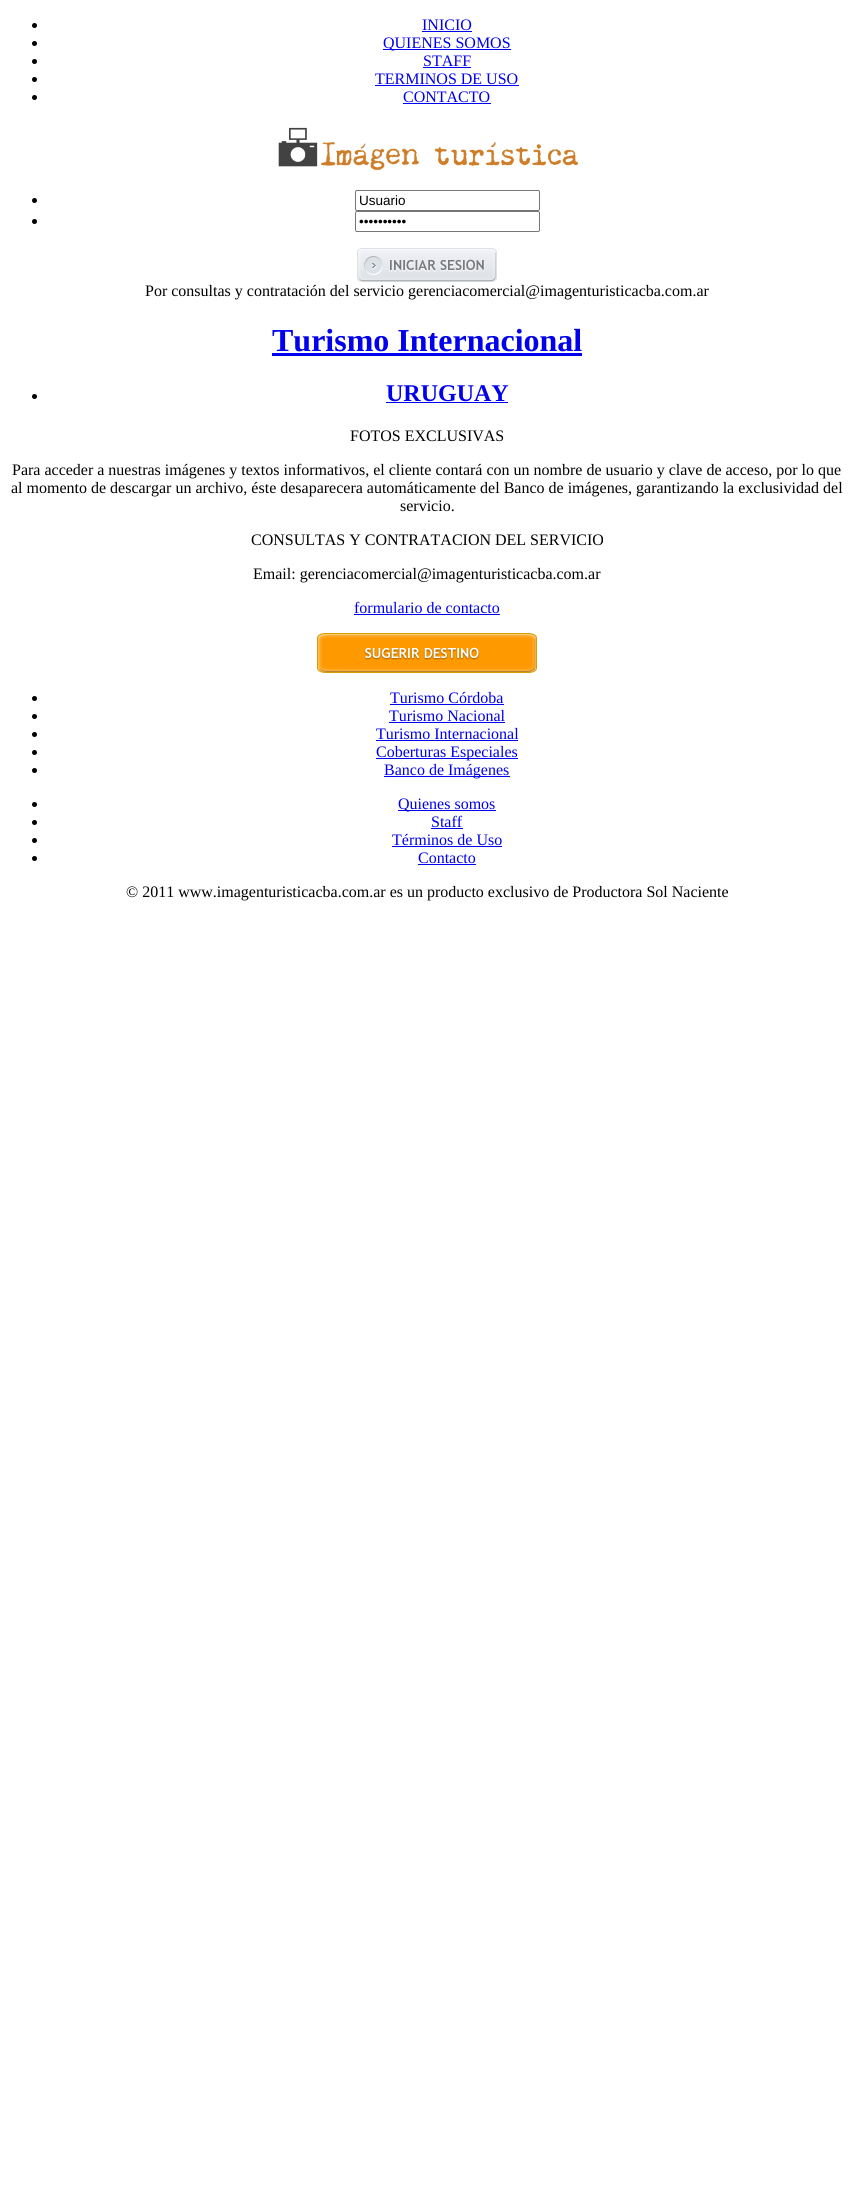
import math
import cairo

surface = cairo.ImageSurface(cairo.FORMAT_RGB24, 854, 2191)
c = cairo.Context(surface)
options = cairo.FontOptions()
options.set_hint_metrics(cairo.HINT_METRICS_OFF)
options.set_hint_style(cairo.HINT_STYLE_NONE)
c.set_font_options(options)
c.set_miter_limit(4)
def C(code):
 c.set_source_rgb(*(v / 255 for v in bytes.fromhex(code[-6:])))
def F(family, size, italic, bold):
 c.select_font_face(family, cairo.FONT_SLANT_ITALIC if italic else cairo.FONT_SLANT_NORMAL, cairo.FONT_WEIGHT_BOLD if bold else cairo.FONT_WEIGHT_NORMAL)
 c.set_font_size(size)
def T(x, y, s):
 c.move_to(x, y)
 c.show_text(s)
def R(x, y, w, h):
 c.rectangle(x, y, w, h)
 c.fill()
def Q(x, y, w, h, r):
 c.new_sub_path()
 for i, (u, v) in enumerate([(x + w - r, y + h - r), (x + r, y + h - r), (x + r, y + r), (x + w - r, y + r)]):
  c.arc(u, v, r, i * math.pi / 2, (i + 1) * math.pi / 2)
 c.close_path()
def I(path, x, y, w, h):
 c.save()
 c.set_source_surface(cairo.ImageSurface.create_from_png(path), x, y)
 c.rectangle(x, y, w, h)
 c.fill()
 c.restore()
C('ffffff')
c.paint()
C('000000')
c.arc(34.5,25.5,2.5,0,2 * math.pi)
c.fill()
F('Liberation Serif',16,0,0)
C('0000ee')
T(422,30,'INICIO')
R(422,31,50,1)
C('000000')
c.new_path()
c.arc(34.5,43.5,2.5,0,2 * math.pi)
c.fill()
C('0000ee')
R(383,49,128,1)
T(383,48,'QUIENES SOMOS')
C('000000')
c.new_path()
c.arc(34.5,61.5,2.5,0,2 * math.pi)
c.fill()
C('0000ee')
T(423,66,'STAFF')
R(423,67,48,1)
C('000000')
c.new_path()
c.arc(34.5,79.5,2.5,0,2 * math.pi)
c.fill()
C('0000ee')
T(375,84,'TERMINOS DE USO')
R(375,85,144,1)
C('000000')
c.new_path()
c.arc(34.5,97.5,2.5,0,2 * math.pi)
c.fill()
C('0000ee')
T(403,102,'CONTACTO')
R(403,103,88,1)
I('1.png',278,127,300,43)
C('000000')
c.arc(34.5,200.5,2.5,0,2 * math.pi)
c.fill()
Q(355.5,190.5,184,20,1.5)
C('767676')
c.set_line_width(1)
c.stroke()
F('Liberation Sans',13.5,0,0)
C('000000')
T(359,205,'Usuario')
c.new_path()
c.arc(34.5,221.5,2.5,0,2 * math.pi)
c.fill()
Q(355.5,211.5,184,20,1.5)
C('767676')
c.stroke()
C('000000')
T(359,226,'••••••••••')
I('2.png',357,248,140,34)
F('Liberation Serif',16,0,0)
T(145,296,'Por consultas y contratación del servicio gerenciacomercial@imagenturisticacba.com.ar')
F('Liberation Serif',32,0,1)
C('0000ee')
T(272,351,'Turismo Internacional')
R(272,353,310,3)
C('000000')
c.new_path()
c.arc(34.5,396.5,2.5,0,2 * math.pi)
c.fill()
F('Liberation Serif',24,0,1)
C('0000ee')
T(386,401,'URUGUAY')
R(386,402,122,1)
F('Liberation Serif',16,0,0)
C('000000')
T(350,441,'FOTOS EXCLUSIVAS')
T(12,475,'Para acceder a nuestras imágenes y textos informativos, el cliente contará con un nombre de usuario y clave de acceso, por lo que')
T(11,493,'al momento de descargar un archivo, éste desaparecera automáticamente del Banco de imágenes, garantizando la exclusividad del')
T(400,511,'servicio.')
T(251,545,'CONSULTAS Y CONTRATACION DEL SERVICIO')
T(253,579,'Email: gerenciacomercial@imagenturisticacba.com.ar')
C('0000ee')
T(354,613,'formulario de contacto')
R(354,614,146,1)
I('3.png',317,633,220,40)
C('000000')
c.arc(34.5,698.5,2.5,0,2 * math.pi)
c.fill()
C('0000ee')
T(390,703,'Turismo Córdoba')
R(390,704,114,1)
C('000000')
c.new_path()
c.arc(34.5,716.5,2.5,0,2 * math.pi)
c.fill()
C('0000ee')
T(389,721,'Turismo Nacional')
R(389,722,116,1)
C('000000')
c.new_path()
c.arc(34.5,734.5,2.5,0,2 * math.pi)
c.fill()
C('0000ee')
T(376,739,'Turismo Internacional')
R(376,740,142,1)
C('000000')
c.new_path()
c.arc(34.5,752.5,2.5,0,2 * math.pi)
c.fill()
C('0000ee')
R(376,758,142,1)
T(376,757,'Coberturas Especiales')
C('000000')
c.new_path()
c.arc(34.5,770.5,2.5,0,2 * math.pi)
c.fill()
C('0000ee')
R(384,776,126,1)
T(384,775,'Banco de Imágenes')
C('000000')
c.new_path()
c.arc(34.5,804.5,2.5,0,2 * math.pi)
c.fill()
C('0000ee')
R(398,810,98,1)
T(398,809,'Quienes somos')
C('000000')
c.new_path()
c.arc(34.5,822.5,2.5,0,2 * math.pi)
c.fill()
C('0000ee')
T(431,827,'Staff')
R(431,828,32,1)
C('000000')
c.new_path()
c.arc(34.5,840.5,2.5,0,2 * math.pi)
c.fill()
C('0000ee')
T(392,845,'Términos de Uso')
R(392,846,110,1)
C('000000')
c.new_path()
c.arc(34.5,858.5,2.5,0,2 * math.pi)
c.fill()
C('0000ee')
T(418,863,'Contacto')
R(418,864,58,1)
C('000000')
T(126,897,'© 2011 www.imagenturisticacba.com.ar es un producto exclusivo de Productora Sol Naciente')
surface.write_to_png('o.png')
